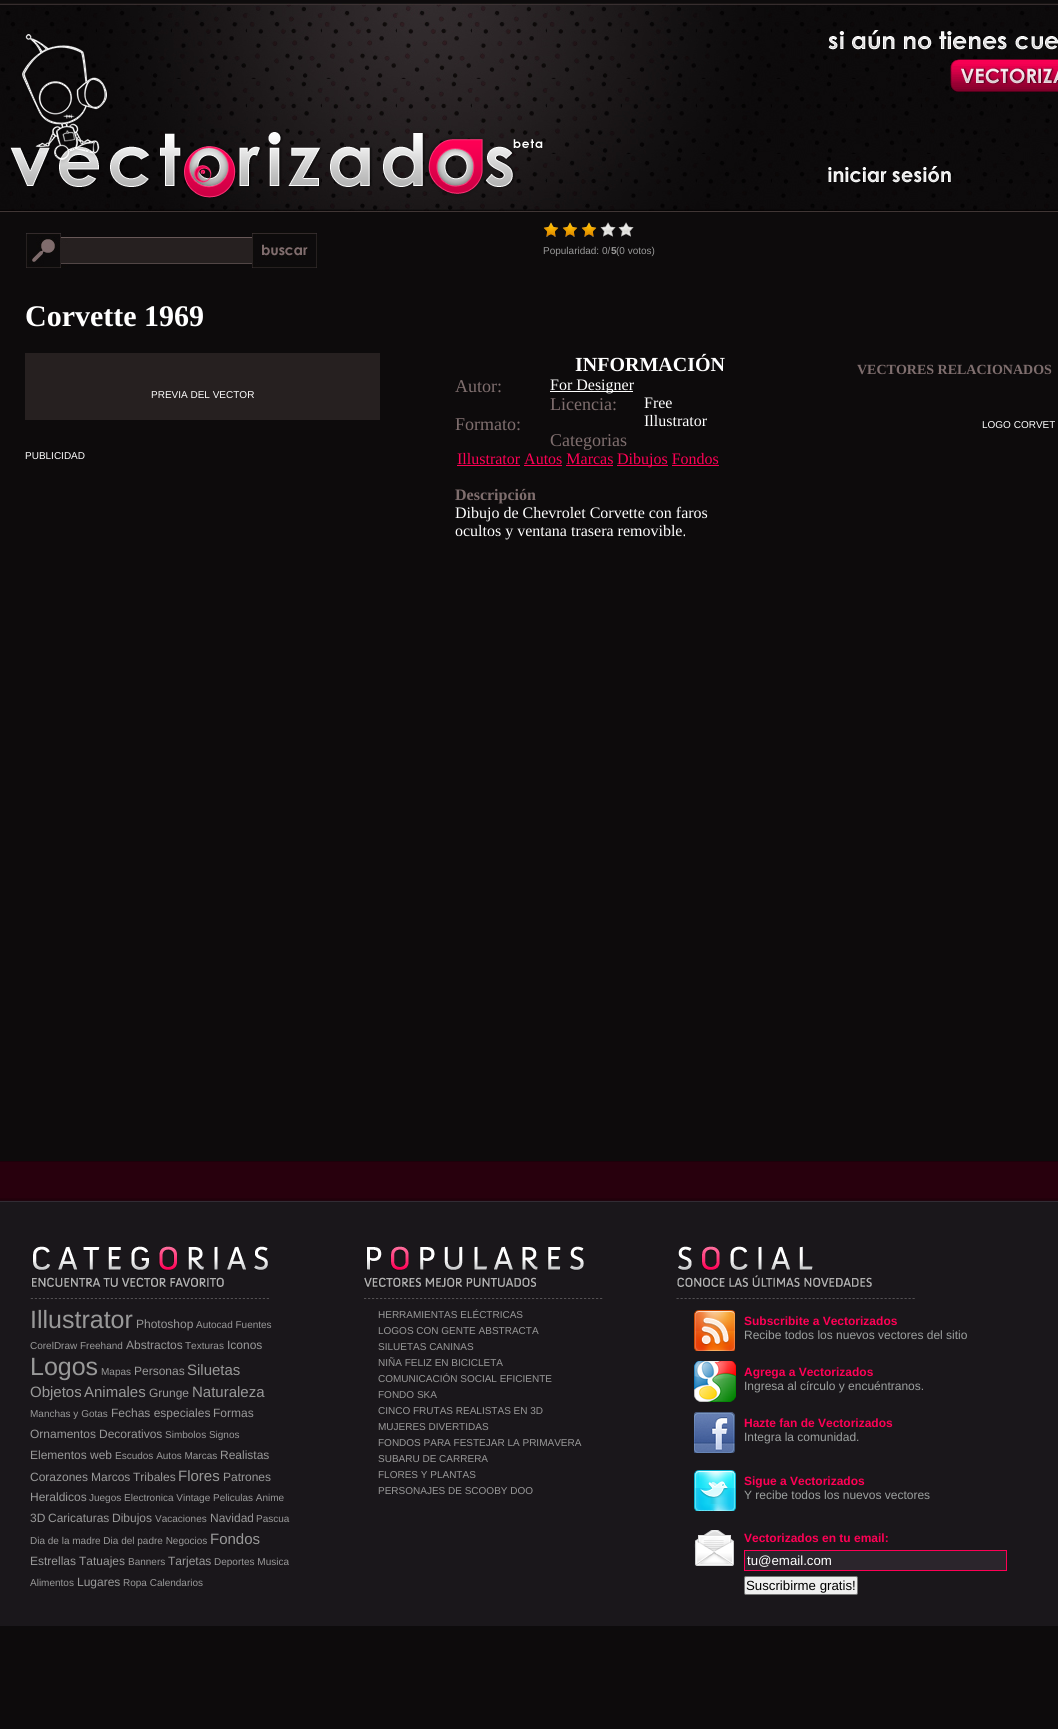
import math
import cairo

surface = cairo.ImageSurface(cairo.FORMAT_RGB24, 1058, 1729)
c = cairo.Context(surface)
options = cairo.FontOptions()
options.set_hint_metrics(cairo.HINT_METRICS_OFF)
options.set_hint_style(cairo.HINT_STYLE_NONE)
c.set_font_options(options)
c.set_miter_limit(4)
def C(code):
 c.set_source_rgb(*(v / 255 for v in bytes.fromhex(code[-6:])))
def F(family, size, italic, bold):
 c.select_font_face(family, cairo.FONT_SLANT_ITALIC if italic else cairo.FONT_SLANT_NORMAL, cairo.FONT_WEIGHT_BOLD if bold else cairo.FONT_WEIGHT_NORMAL)
 c.set_font_size(size)
def T(x, y, s):
 c.move_to(x, y)
 c.show_text(s)
def R(x, y, w, h):
 c.rectangle(x, y, w, h)
 c.fill()
def Q(x, y, w, h, r):
 c.new_sub_path()
 for i, (u, v) in enumerate([(x + w - r, y + h - r), (x + r, y + h - r), (x + r, y + r), (x + w - r, y + r)]):
  c.arc(u, v, r, i * math.pi / 2, (i + 1) * math.pi / 2)
 c.close_path()
def I(path, x, y, w, h):
 c.save()
 c.set_source_surface(cairo.ImageSurface.create_from_png(path), x, y)
 c.rectangle(x, y, w, h)
 c.fill()
 c.restore()
C('0d0b0c')
c.paint()
I('1.png',0,3,1058,209)
I('2.png',10,34,534,164)
I('3.png',828,30,230,62)
I('4.png',828,166,124,17)
I('5.png',26,233,226,35)
I('6.png',252,232,66,37)
I('7.png',543,222,16,15)
I('7.png',562,222,16,15)
I('7.png',581,222,16,15)
I('8.png',600,222,16,15)
I('8.png',618,222,16,15)
F('Liberation Sans',10,0,0)
C('999999')
T(543,254,'Popularidad: 0/')
F('Liberation Sans',10,0,1)
T(611,254,'5')
F('Liberation Sans',10,0,0)
T(616,254,'(0 votos)')
F('Liberation Serif',30,0,1)
C('ffffff')
T(25,326,'Corvette 1969')
C('262020')
R(25,353,355,67)
F('Liberation Sans',10,0,0)
C('ffffff')
T(151,398,'PREVIA DEL VECTOR')
F('Liberation Serif',20,0,1)
T(575,371,'INFORMACIÓN')
F('Liberation Serif',18,0,0)
C('7f6e6e')
T(455,392,'Autor:')
C('ffffff')
R(550,391,83,1)
F('Liberation Serif',16,0,0)
T(550,390,'For Designer')
F('Liberation Serif',18,0,0)
C('7f6e6e')
T(550,410,'Licencia:')
F('Liberation Serif',16,0,0)
C('ffffff')
T(644,408,'Free')
F('Liberation Serif',18,0,0)
C('7f6e6e')
T(455,430,'Formato:')
F('Liberation Serif',16,0,0)
C('ffffff')
T(644,426,'Illustrator')
F('Liberation Serif',18,0,0)
C('7f6e6e')
T(550,446,'Categorias')
F('Liberation Serif',16,0,0)
C('ff0055')
T(457,464,'Illustrator Autos Marcas')
R(457,465,63,1)
R(617,465,51,1)
T(617,464,'Dibujos Fondos')
R(524,465,38,1)
R(566,465,47,1)
R(672,465,47,1)
F('Liberation Serif',16,0,1)
C('7f6e6e')
T(455,500,'Descripción')
F('Liberation Serif',16,0,0)
C('ffffff')
T(455,518,'Dibujo de Chevrolet Corvette con faros')
T(455,536,'ocultos y ventana trasera removible.')
F('Liberation Sans',10,0,0)
T(25,459,'PUBLICIDAD')
F('Liberation Serif',14,0,1)
C('7f6e6e')
T(857,374,'VECTORES RELACIONADOS')
F('Liberation Sans',10,0,0)
C('ffffff')
T(982,428,'LOGO CORVET')
C('1a171b')
R(0,1202,1058,424)
I('9.png',0,1161,1058,41)
I('10.png',30,1246,239,53)
F('Liberation Sans',25,0,0)
C('999999')
T(30,1328,'Illustrator')
F('Liberation Sans',12,0,0)
T(136,1328,'Photoshop')
F('Liberation Sans',10,0,0)
T(196,1328,'Autocad Fuentes')
T(30,1349,'CorelDraw Freehand')
F('Liberation Sans',12,0,0)
T(126,1349,'Abstractos')
F('Liberation Sans',10,0,0)
T(185,1349,'Texturas')
F('Liberation Sans',12,0,0)
T(227,1349,'Iconos')
F('Liberation Sans',25,0,0)
T(30,1375,'Logos')
F('Liberation Sans',10,0,0)
T(101,1375,'Mapas')
F('Liberation Sans',12,0,0)
T(134,1375,'Personas')
F('Liberation Sans',15,0,0)
T(187,1375,'Siluetas')
T(30,1397,'Objetos')
T(84,1397,'Animales')
F('Liberation Sans',12,0,0)
T(149,1397,'Grunge')
F('Liberation Sans',15,0,0)
T(192,1397,'Naturaleza')
F('Liberation Sans',10,0,0)
T(30,1417,'Manchas y Gotas')
F('Liberation Sans',12,0,0)
T(111,1417,'Fechas especiales')
T(213,1417,'Formas')
T(30,1438,'Ornamentos')
T(99,1438,'Decorativos')
F('Liberation Sans',10,0,0)
T(165,1438,'Simbolos Signos')
F('Liberation Sans',12,0,0)
T(30,1459,'Elementos web')
F('Liberation Sans',10,0,0)
T(115,1459,'Escudos Autos Marcas')
F('Liberation Sans',12,0,0)
T(220,1459,'Realistas')
T(30,1481,'Corazones')
T(91,1481,'Marcos')
T(133,1481,'Tribales')
F('Liberation Sans',15,0,0)
T(178,1481,'Flores')
F('Liberation Sans',12,0,0)
T(223,1481,'Patrones')
T(30,1501,'Heraldicos')
F('Liberation Sans',10,0,0)
T(89,1501,'Juegos Electronica Vintage Peliculas Anime')
F('Liberation Sans',12,0,0)
T(30,1522,'3D')
T(48,1522,'Caricaturas')
T(112,1522,'Dibujos')
F('Liberation Sans',10,0,0)
T(155,1522,'Vacaciones')
F('Liberation Sans',12,0,0)
T(210,1522,'Navidad')
F('Liberation Sans',10,0,0)
T(256,1522,'Pascua')
T(30,1544,'Dia de la madre Dia del padre Negocios')
F('Liberation Sans',15,0,0)
T(210,1544,'Fondos')
F('Liberation Sans',12,0,0)
T(30,1565,'Estrellas')
T(79,1565,'Tatuajes')
F('Liberation Sans',10,0,0)
T(128,1565,'Banners')
F('Liberation Sans',12,0,0)
T(168,1565,'Tarjetas')
F('Liberation Sans',10,0,0)
T(214,1565,'Deportes Musica')
T(30,1586,'Alimentos')
F('Liberation Sans',12,0,0)
T(77,1586,'Lugares')
F('Liberation Sans',10,0,0)
T(123,1586,'Ropa Calendarios')
I('11.png',363,1246,240,53)
T(378,1318,'HERRAMIENTAS ELÉCTRICAS')
T(378,1334,'LOGOS CON GENTE ABSTRACTA')
T(378,1350,'SILUETAS CANINAS')
T(378,1366,'NIÑA FELIZ EN BICICLETA')
T(378,1382,'COMUNICACIÓN SOCIAL EFICIENTE')
T(378,1398,'FONDO SKA')
T(378,1414,'CINCO FRUTAS REALISTAS EN 3D')
T(378,1430,'MUJERES DIVERTIDAS')
T(378,1446,'FONDOS PARA FESTEJAR LA PRIMAVERA')
T(378,1462,'SUBARU DE CARRERA')
T(378,1478,'FLORES Y PLANTAS')
T(378,1494,'PERSONAJES DE SCOOBY DOO')
I('12.png',676,1246,239,53)
I('13.png',694,1310,41,41)
F('Liberation Sans',12,0,1)
C('ff0055')
T(744,1325,'Subscribite a Vectorizados')
F('Liberation Sans',12,0,0)
C('9ca09f')
T(744,1339,'Recibe todos los nuevos vectores del sitio')
I('14.png',694,1361,42,41)
F('Liberation Sans',12,0,1)
C('ff0055')
T(744,1376,'Agrega a Vectorizados')
F('Liberation Sans',12,0,0)
C('9ca09f')
T(744,1390,'Ingresa al círculo y encuéntranos.')
I('15.png',694,1412,41,41)
F('Liberation Sans',12,0,1)
C('ff0055')
T(744,1427,'Hazte fan de Vectorizados')
F('Liberation Sans',12,0,0)
C('9ca09f')
T(744,1441,'Integra la comunidad.')
I('16.png',694,1470,42,41)
F('Liberation Sans',12,0,1)
C('ff0055')
T(744,1485,'Sigue a Vectorizados')
F('Liberation Sans',12,0,0)
C('9ca09f')
T(744,1499,'Y recibe todos los nuevos vectores')
I('17.png',694,1530,40,36)
F('Liberation Sans',12,0,1)
C('ff0055')
T(744,1542,'Vectorizados en tu email:')
C('2b252c')
c.rectangle(744.5,1550.5,262,20)
c.fill_preserve()
C('ff0055')
c.set_line_width(1)
c.stroke()
F('Liberation Sans',13.25,0,0)
C('ffffff')
T(747,1565,'tu@email.com')
C('efefef')
Q(744.5,1576.5,113,18,1.5)
c.fill_preserve()
C('767676')
c.stroke()
C('000000')
T(746,1590,'Suscribirme gratis!')
surface.write_to_png('o.png')
